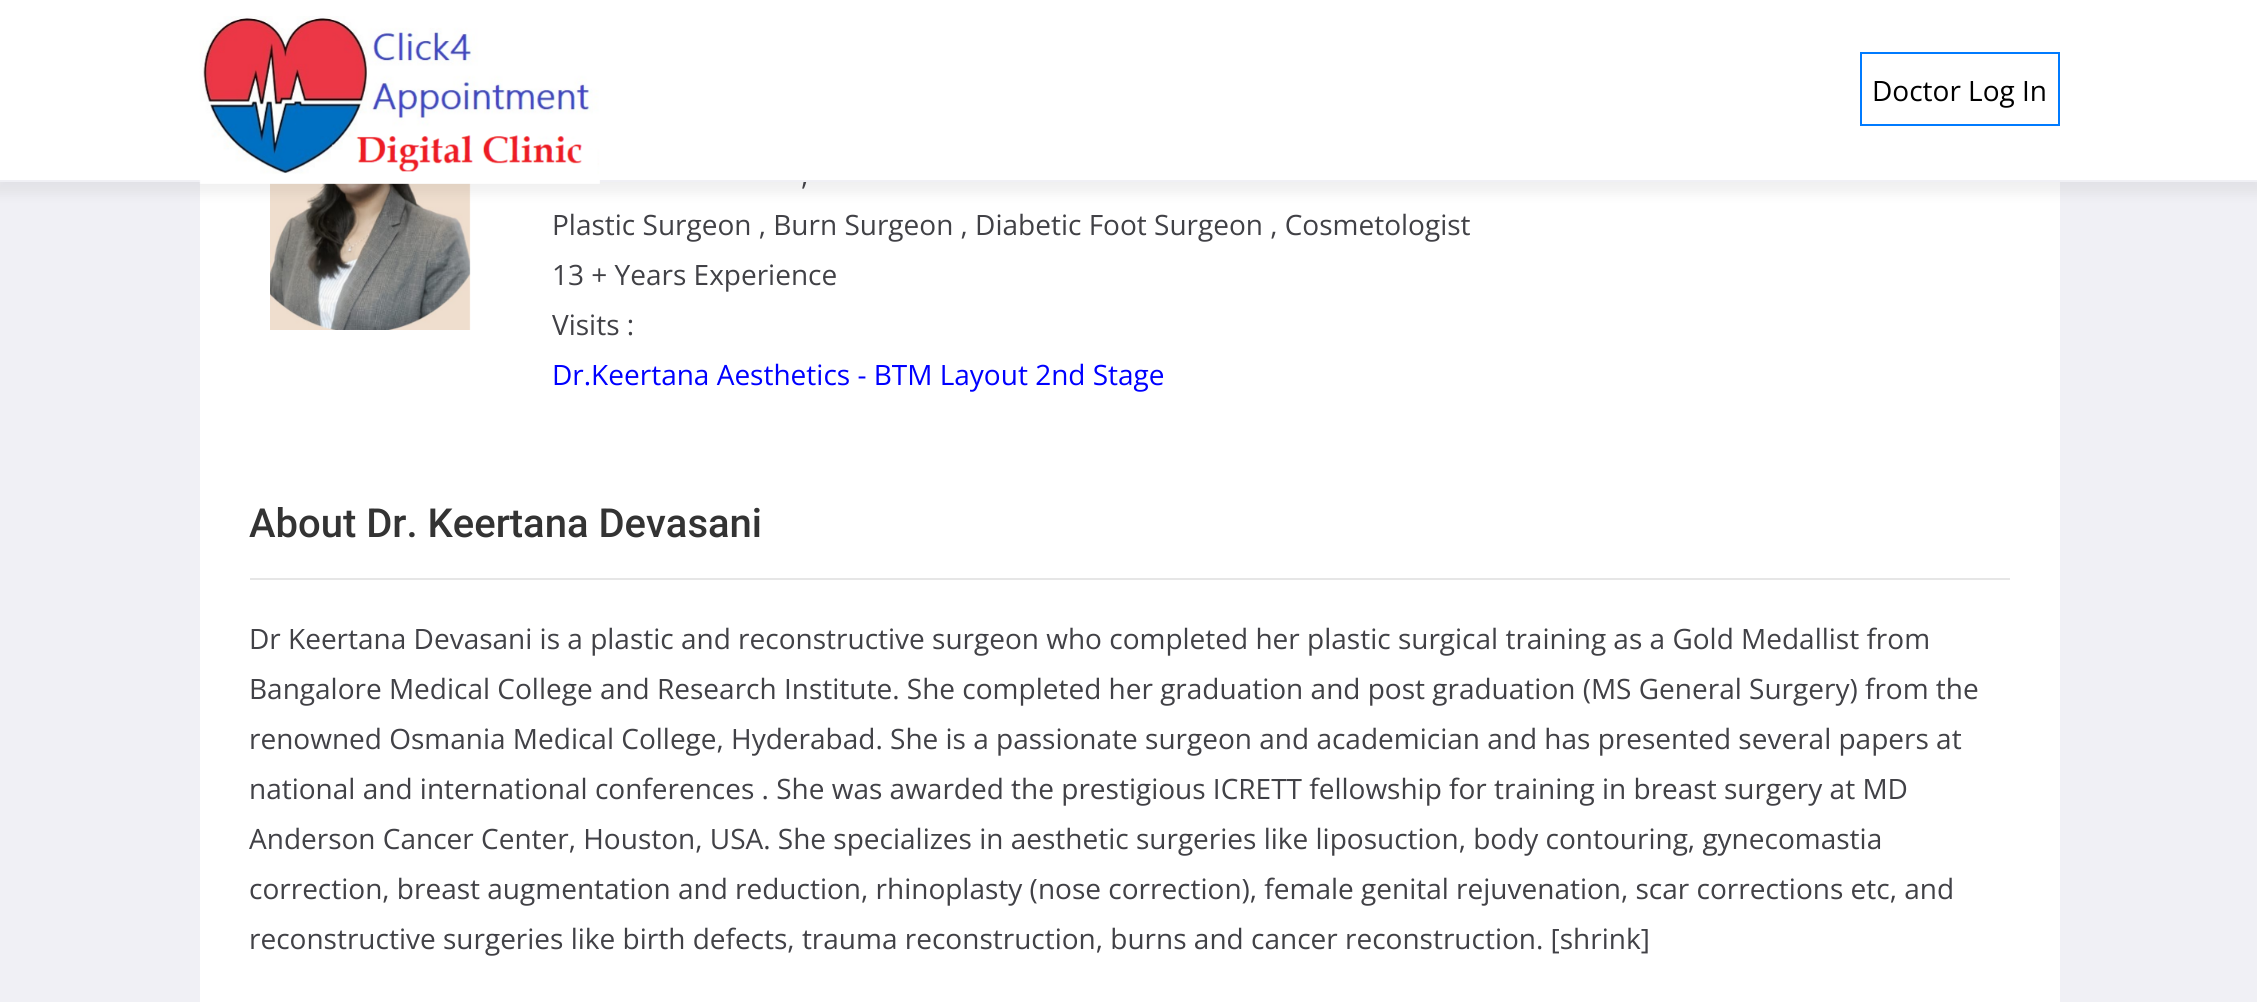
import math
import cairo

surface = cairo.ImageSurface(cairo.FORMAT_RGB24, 2257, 1002)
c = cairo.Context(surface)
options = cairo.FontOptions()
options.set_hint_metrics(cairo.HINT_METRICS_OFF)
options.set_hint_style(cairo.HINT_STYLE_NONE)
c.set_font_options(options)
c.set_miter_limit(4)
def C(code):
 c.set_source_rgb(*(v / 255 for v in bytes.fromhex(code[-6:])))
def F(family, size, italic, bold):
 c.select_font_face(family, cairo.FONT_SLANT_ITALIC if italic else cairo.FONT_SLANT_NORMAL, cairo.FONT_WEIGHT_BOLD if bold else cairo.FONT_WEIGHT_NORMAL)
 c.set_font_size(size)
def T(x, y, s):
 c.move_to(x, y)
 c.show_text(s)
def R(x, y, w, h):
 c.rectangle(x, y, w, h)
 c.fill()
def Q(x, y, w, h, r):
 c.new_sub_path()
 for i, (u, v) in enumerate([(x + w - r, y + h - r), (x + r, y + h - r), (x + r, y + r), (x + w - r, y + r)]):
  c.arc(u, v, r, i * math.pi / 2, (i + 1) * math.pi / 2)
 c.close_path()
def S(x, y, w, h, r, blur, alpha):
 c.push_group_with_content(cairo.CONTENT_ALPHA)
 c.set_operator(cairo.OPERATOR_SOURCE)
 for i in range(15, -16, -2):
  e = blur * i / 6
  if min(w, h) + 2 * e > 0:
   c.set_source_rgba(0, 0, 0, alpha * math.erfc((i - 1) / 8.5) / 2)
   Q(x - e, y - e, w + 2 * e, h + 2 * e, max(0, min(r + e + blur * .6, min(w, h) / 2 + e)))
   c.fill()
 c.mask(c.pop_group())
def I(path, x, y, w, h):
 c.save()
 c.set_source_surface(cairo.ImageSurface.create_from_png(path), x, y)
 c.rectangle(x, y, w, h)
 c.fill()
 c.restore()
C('f0f0f5')
c.paint()
C('ffffff')
R(200,182,1860,820)
I('2.png',270,183,201,147)
C('000000')
S(-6,0,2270,194,0,6,.06)
C('ffffff')
R(0,0,2257,180)
F('Open Sans',28,0,0)
C('414146')
T(801,185,',')
C('f0f0f5')
R(0,180,2257,2)
I('1.png',199,16,401,168)
c.rectangle(1861,53,198,72)
C('007bff')
c.stroke()
C('000000')
T(1872,101,'Doctor Log In')
C('414146')
T(552,235,'Plastic Surgeon , Burn Surgeon , Diabetic Foot Surgeon , Cosmetologist')
T(552,285,'13 + Years Experience')
T(552,335,'Visits :')
C('0000ff')
T(552,385,'Dr.Keertana Aesthetics - BTM Layout 2nd Stage')
F('Roboto Medium',40,0,0)
C('333333')
T(249,537,'About Dr. Keertana Devasani')
C('e6e6e6')
R(250,578,1760,2)
F('Open Sans',28,0,0)
C('414146')
T(249,649,'Dr Keertana Devasani is a plastic and reconstructive surgeon who completed her plastic surgical training as a Gold Medallist from')
T(249,699,'Bangalore Medical College and Research Institute. She completed her graduation and post graduation (MS General Surgery) from the')
T(249,749,'renowned Osmania Medical College, Hyderabad. She is a passionate surgeon and academician and has presented several papers at')
T(249,799,'national and international conferences . She was awarded the prestigious ICRETT fellowship for training in breast surgery at MD')
T(249,849,'Anderson Cancer Center, Houston, USA. She specializes in aesthetic surgeries like liposuction, body contouring, gynecomastia')
T(249,899,'correction, breast augmentation and reduction, rhinoplasty (nose correction), female genital rejuvenation, scar corrections etc, and')
T(249,949,'reconstructive surgeries like birth defects, trauma reconstruction, burns and cancer reconstruction. [shrink]')
surface.write_to_png('o.png')
